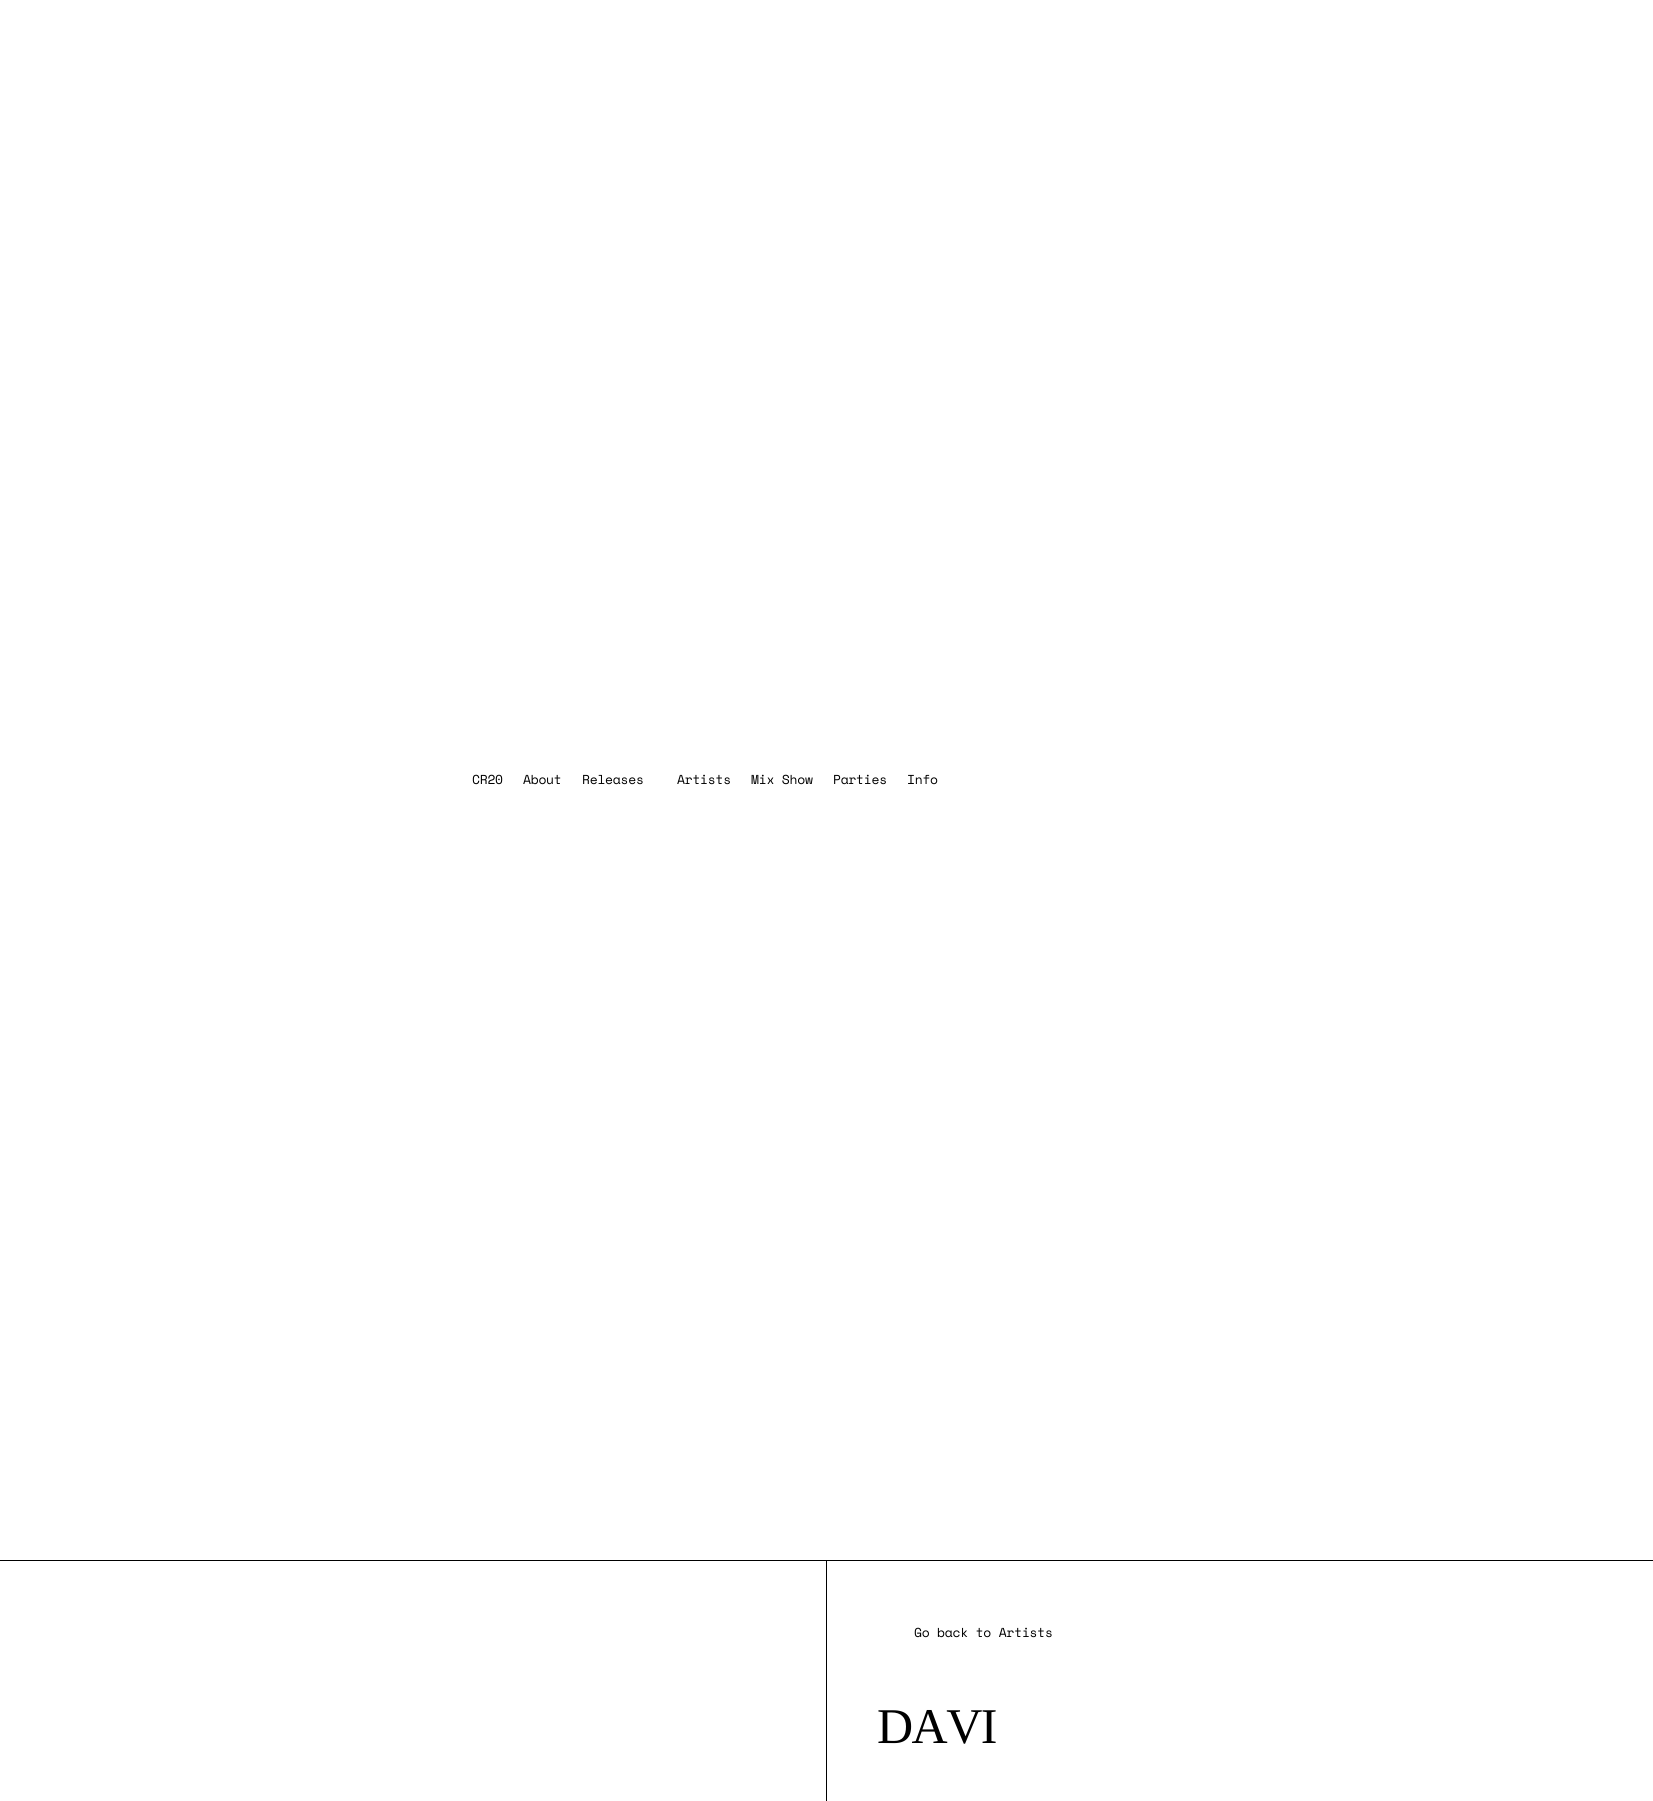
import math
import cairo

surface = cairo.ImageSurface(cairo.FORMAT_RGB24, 1653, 1801)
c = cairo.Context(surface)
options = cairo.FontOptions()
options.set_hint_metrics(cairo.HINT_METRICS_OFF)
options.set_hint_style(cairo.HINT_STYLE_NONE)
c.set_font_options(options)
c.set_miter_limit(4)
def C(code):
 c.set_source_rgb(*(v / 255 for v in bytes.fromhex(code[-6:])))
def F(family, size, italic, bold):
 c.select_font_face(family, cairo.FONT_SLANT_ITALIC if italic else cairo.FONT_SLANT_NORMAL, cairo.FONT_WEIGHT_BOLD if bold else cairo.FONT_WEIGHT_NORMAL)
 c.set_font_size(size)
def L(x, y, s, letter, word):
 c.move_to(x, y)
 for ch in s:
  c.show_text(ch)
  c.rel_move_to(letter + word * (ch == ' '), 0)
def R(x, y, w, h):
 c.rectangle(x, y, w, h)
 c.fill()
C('ffffff')
c.paint()
C('000000')
R(0,1560,1653,1)
F('Space Mono',13,0,0)
L(472,784,'CR20',-.25,0)
L(523,784,'About',-.25,0)
L(582,784,'Releases',-.25,0)
L(677,784,'Artists',-.25,0)
L(751,784,'Mix Show',-.25,0)
L(833,784,'Parties',-.25,0)
L(907,784,'Info',-.25,0)
R(826,1561,1,240)
L(914,1637,'Go back to Artists',-.25,0)
F('Liberation Serif',50,0,0)
L(877,1743,'DAVI',-1.5,0)
surface.write_to_png('o.png')
